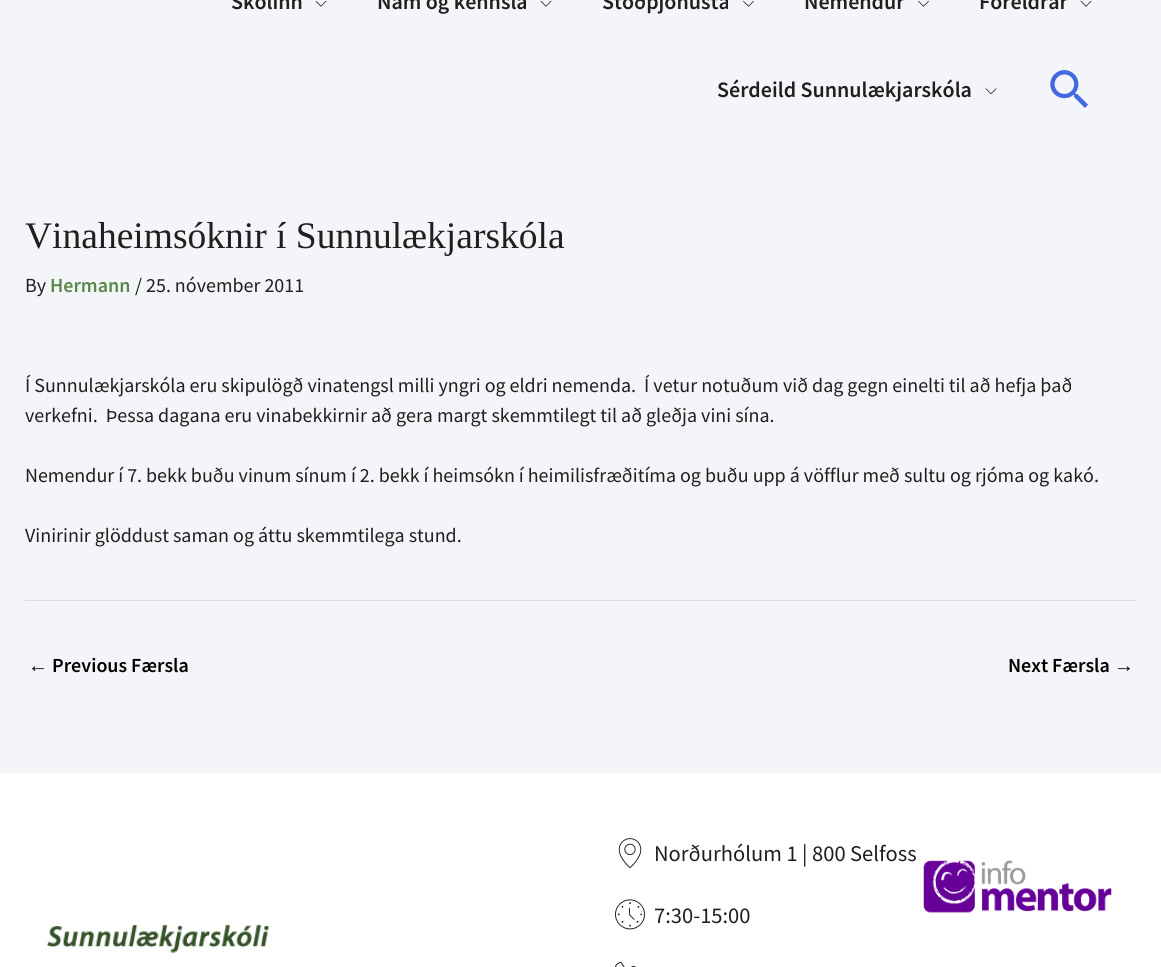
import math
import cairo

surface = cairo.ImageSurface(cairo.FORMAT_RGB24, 1161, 967)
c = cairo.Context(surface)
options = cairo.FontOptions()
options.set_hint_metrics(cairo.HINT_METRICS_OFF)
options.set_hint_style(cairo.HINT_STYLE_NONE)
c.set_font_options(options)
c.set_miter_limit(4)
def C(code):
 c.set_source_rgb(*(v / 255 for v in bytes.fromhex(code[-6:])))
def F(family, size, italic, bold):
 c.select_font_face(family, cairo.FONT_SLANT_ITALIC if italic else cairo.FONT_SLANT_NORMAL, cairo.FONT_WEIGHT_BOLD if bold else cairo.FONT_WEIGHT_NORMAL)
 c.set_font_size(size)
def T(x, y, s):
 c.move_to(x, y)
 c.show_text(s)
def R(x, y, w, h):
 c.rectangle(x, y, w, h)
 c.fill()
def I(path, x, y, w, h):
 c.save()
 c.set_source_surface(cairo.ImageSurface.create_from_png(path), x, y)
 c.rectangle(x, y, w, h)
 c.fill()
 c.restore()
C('f4f5f8')
c.paint()
F('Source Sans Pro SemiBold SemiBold',22,0,0)
C('1f1f1f')
T(231,9,'Skólinn')
I('1.png',315,0,12,7)
T(377,9,'Nám og kennsla')
I('1.png',540,0,12,7)
T(602,9,'Stoðþjónusta')
I('2.png',743,0,11,7)
T(804,9,'Nemendur')
I('2.png',918,0,11,7)
T(979,9,'Foreldrar')
I('1.png',1080,0,12,7)
T(717,97,'Sérdeild Sunnulækjarskóla')
I('3.png',985,88,12,7)
I('4.png',1050,70,38,38)
F('Liberation Serif',37.5,0,0)
T(25,248,'Vinaheimsóknir í Sunnulækjarskóla')
F('Source Sans Pro',20,0,0)
T(25,292,'By')
F('Source Sans Pro SemiBold SemiBold',20,0,0)
C('588747')
T(50,292,'Hermann')
F('Source Sans Pro',20,0,0)
C('1f1f1f')
T(135,292,'/ 25. nóvember 2011')
T(25,392,'Í Sunnulækjarskóla eru skipulögð vinatengsl milli yngri og eldri nemenda.  Í vetur notuðum við dag gegn einelti til að hefja það')
T(25,422,'verkefni.  Þessa dagana eru vinabekkirnir að gera margt skemmtilegt til að gleðja vini sína.')
T(25,482,'Nemendur í 7. bekk buðu vinum sínum í 2. bekk í heimsókn í heimilisfræðitíma og buðu upp á vöfflur með sultu og rjóma og kakó.')
T(25,542,'Vinirinir glöddust saman og áttu skemmtilega stund.')
C('dddddd')
R(25,600,1111,1)
F('Liberation Sans',20,0,1)
C('000000')
T(28,672,'←')
F('Source Sans Pro SemiBold SemiBold',20,0,0)
T(52,672,'Previous Færsla')
T(1008,672,'Next Færsla')
F('Liberation Sans',20,0,1)
T(1114,672,'→')
C('ffffff')
R(0,773,1161,194)
I('5.png',618,838,24,31)
F('Source Sans Pro',22.5,0,0)
C('1f1f1f')
T(654,861,'Norðurhólum 1 | 800 Selfoss')
I('6.png',615,899,30,31)
T(654,923,'7:30-15:00')
I('7.png',615,961,22,6)
I('8.png',923,860,189,53)
I('9.png',47,924,222,29)
surface.write_to_png('o.png')
